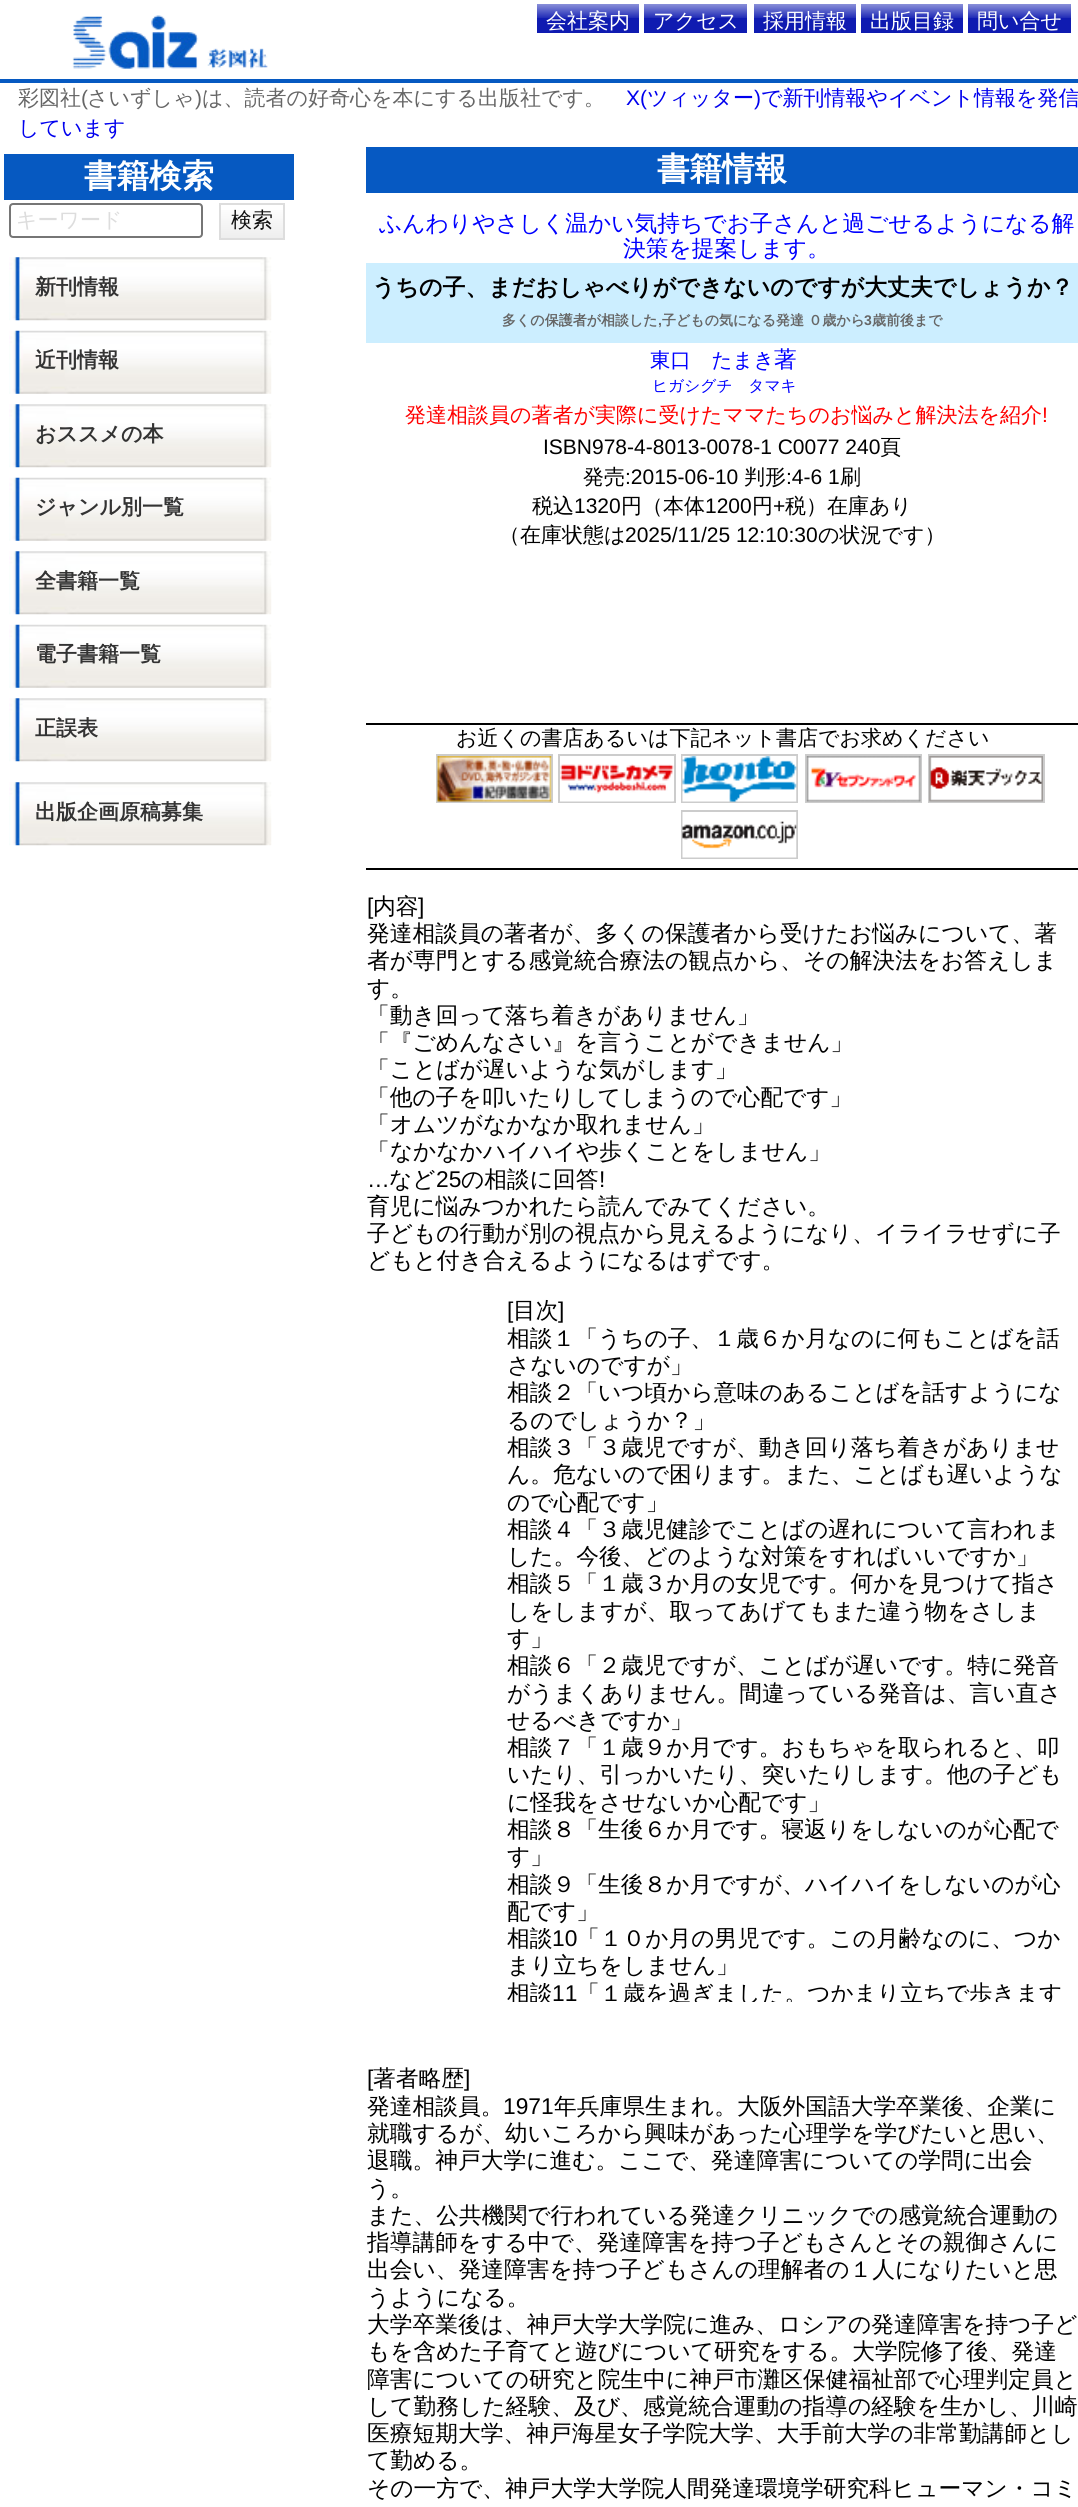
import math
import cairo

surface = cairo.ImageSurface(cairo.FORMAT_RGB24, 1078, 2507)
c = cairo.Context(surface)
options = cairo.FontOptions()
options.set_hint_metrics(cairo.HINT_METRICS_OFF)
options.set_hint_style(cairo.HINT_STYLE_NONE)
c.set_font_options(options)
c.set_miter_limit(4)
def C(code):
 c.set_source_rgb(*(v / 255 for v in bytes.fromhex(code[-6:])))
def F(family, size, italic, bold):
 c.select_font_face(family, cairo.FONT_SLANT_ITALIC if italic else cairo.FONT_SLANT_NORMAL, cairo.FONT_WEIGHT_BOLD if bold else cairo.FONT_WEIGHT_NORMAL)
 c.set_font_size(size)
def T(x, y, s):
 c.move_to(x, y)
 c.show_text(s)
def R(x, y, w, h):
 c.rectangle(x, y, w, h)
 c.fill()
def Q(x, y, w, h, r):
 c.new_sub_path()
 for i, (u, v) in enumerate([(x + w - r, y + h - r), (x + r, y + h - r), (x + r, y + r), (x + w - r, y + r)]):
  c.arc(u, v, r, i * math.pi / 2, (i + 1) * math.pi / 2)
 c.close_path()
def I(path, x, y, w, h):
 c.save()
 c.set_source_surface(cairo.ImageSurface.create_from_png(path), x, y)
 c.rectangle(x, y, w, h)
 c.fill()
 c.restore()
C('ffffff')
c.paint()
C('0659c1')
R(0,79,1078,4)
I('1.png',72,15,196,54)
gradient = cairo.LinearGradient(588,3.5,588,33)
gradient.add_color_stop_rgba(0,0.557,0.58,0.855,1)
gradient.add_color_stop_rgba(.49,0.125,0.169,0.718,1)
gradient.add_color_stop_rgba(.5,0.059,0.106,0.694,1)
c.set_source(gradient)
R(537,4,102,29)
F('WenQuanYi Zen Hei Medium',21,0,0)
C('ffffff')
T(546,28,'会社案内')
gradient = cairo.LinearGradient(696,3.5,696,33)
gradient.add_color_stop_rgba(0,0.557,0.58,0.855,1)
gradient.add_color_stop_rgba(.49,0.125,0.169,0.718,1)
gradient.add_color_stop_rgba(.5,0.059,0.106,0.694,1)
c.set_source(gradient)
R(644,4,103,29)
C('ffffff')
T(653,28,'アクセス')
gradient = cairo.LinearGradient(805,3.5,805,33)
gradient.add_color_stop_rgba(0,0.557,0.58,0.855,1)
gradient.add_color_stop_rgba(.49,0.125,0.169,0.718,1)
gradient.add_color_stop_rgba(.5,0.059,0.106,0.694,1)
c.set_source(gradient)
R(754,4,102,29)
C('ffffff')
T(763,28,'採用情報')
gradient = cairo.LinearGradient(912,3.5,912,33)
gradient.add_color_stop_rgba(0,0.557,0.58,0.855,1)
gradient.add_color_stop_rgba(.49,0.125,0.169,0.718,1)
gradient.add_color_stop_rgba(.5,0.059,0.106,0.694,1)
c.set_source(gradient)
R(861,4,102,29)
C('ffffff')
T(870,28,'出版目録')
gradient = cairo.LinearGradient(1019,3.5,1019,33)
gradient.add_color_stop_rgba(0,0.557,0.58,0.855,1)
gradient.add_color_stop_rgba(.49,0.125,0.169,0.718,1)
gradient.add_color_stop_rgba(.5,0.059,0.106,0.694,1)
c.set_source(gradient)
R(968,4,103,29)
C('ffffff')
T(977,28,'問い合せ')
C('666666')
T(18,105,'彩図社')
F('Liberation Sans',21,0,0)
T(81,105,'(')
F('WenQuanYi Zen Hei Medium',21,0,0)
T(87,105,'さいずしゃ')
F('Liberation Sans',21,0,0)
T(195,105,')')
F('WenQuanYi Zen Hei Medium',21,0,0)
T(202,105,'は、読者の好奇心を本にする出版社です。')
F('Liberation Sans',21,0,0)
C('0000ee')
T(626,105,'X(')
F('WenQuanYi Zen Hei Medium',21,0,0)
T(647,105,'ツィッター')
F('Liberation Sans',21,0,0)
T(754,105,')')
F('WenQuanYi Zen Hei Medium',21,0,0)
T(761,105,'で新刊情報やイベント情報を発信')
T(18,135,'しています')
C('0659c1')
R(4,154,290,46)
F('WenQuanYi Zen Hei',32.5,0,1)
C('ffffff')
T(84,187,'書籍検索')
Q(10,204,192,33,3)
C('767676')
c.stroke()
F('WenQuanYi Zen Hei Medium',21,0,0)
C('dddddd')
T(16,227,'キーワード')
gradient = cairo.LinearGradient(221,205,221,238)
gradient.add_color_stop_rgba(0,1,1,1,1)
gradient.add_color_stop_rgba(1,0.933,0.933,0.933,1)
c.set_source(gradient)
R(221,210,62,28)
c.rectangle(220,204,64,35)
C('dddddd')
c.stroke()
C('111111')
T(231,227,'検索')
I('2.png',9,257,263,64)
F('WenQuanYi Zen Hei',21,0,1)
C('333333')
T(35,294,'新刊情報')
I('3.png',9,330,263,64)
T(35,367,'近刊情報')
I('2.png',9,404,263,64)
T(35,441,'おススメの本')
I('3.png',9,477,263,64)
T(35,514,'ジャンル別一覧')
I('2.png',9,551,263,64)
T(35,588,'全書籍一覧')
I('3.png',9,624,263,64)
T(35,661,'電子書籍一覧')
I('2.png',9,698,263,64)
T(35,735,'正誤表')
I('2.png',9,782,263,64)
T(35,819,'出版企画原稿募集')
C('0659c2')
R(366,147,712,46)
F('WenQuanYi Zen Hei',32.5,0,1)
C('ffffff')
T(657,180,'書籍情報')
F('WenQuanYi Zen Hei Medium',22.75,0,0)
C('0000ff')
T(379,231,'ふんわりやさしく温かい気持ちでお子さんと過ごせるようになる解')
T(623,256,'決策を提案します。')
C('cceeff')
R(366,263,712,80)
F('WenQuanYi Zen Hei',22.95,0,1)
C('000000')
T(372,295,'うちの子、まだおしゃべりができないのですが大丈夫でしょうか？')
F('WenQuanYi Zen Hei',14,0,1)
C('666666')
T(502,325,'多くの保護者が相談した')
F('Liberation Sans',14,0,1)
T(658,325,',')
F('WenQuanYi Zen Hei',14,0,1)
T(662,325,'子どもの気になる発達 ０歳から')
F('Liberation Sans',14,0,1)
T(864,325,'3')
F('WenQuanYi Zen Hei',14,0,1)
T(872,325,'歳前後まで')
F('WenQuanYi Zen Hei Medium',20.5,0,0)
C('0000ff')
T(650,367,'東口　たまき')
F('WenQuanYi Zen Hei Medium',22.75,0,0)
T(774,367,'著')
F('WenQuanYi Zen Hei Medium',15.75,0,0)
T(652,391,'ヒガシグチ　タマキ')
F('WenQuanYi Zen Hei Medium',21,0,0)
C('ff0000')
T(405,422,'発達相談員の著者が実際に受けたママたちのお悩みと解決法を紹介')
F('Liberation Sans',21,0,0)
T(1042,422,'!')
C('000000')
T(543,454,'ISBN978-4-8013-0078-1 C0077 240')
F('WenQuanYi Zen Hei Medium',21,0,0)
T(880,454,'頁')
T(583,484,'発売')
F('Liberation Sans',21,0,0)
T(625,484,':2015-06-10')
F('WenQuanYi Zen Hei Medium',21,0,0)
T(744,484,'判形')
F('Liberation Sans',21,0,0)
T(786,484,':4-6 1')
F('WenQuanYi Zen Hei Medium',21,0,0)
T(840,484,'刷')
T(532,513,'税込')
F('Liberation Sans',21,0,0)
T(574,513,'1320')
F('WenQuanYi Zen Hei Medium',21,0,0)
T(621,513,'円（本体')
F('Liberation Sans',21,0,0)
T(705,513,'1200')
F('WenQuanYi Zen Hei Medium',21,0,0)
T(752,513,'円')
F('Liberation Sans',21,0,0)
T(773,513,'+')
F('WenQuanYi Zen Hei Medium',21,0,0)
T(785,513,'税）在庫あり')
T(499,542,'（在庫状態は')
F('Liberation Sans',21,0,0)
T(625,542,'2025/11/25 12:10:30')
F('WenQuanYi Zen Hei Medium',21,0,0)
T(818,542,'の状況です）')
R(366,723,712,2)
R(366,868,712,2)
T(456,745,'お近くの書店あるいは下記ネット書店でお求めください')
c.rectangle(437,755,115,47)
C('cccccc')
c.stroke()
c.rectangle(559,755,116,47)
c.stroke()
c.rectangle(682,755,115,47)
c.stroke()
c.rectangle(806,755,115,47)
c.stroke()
c.rectangle(929,755,115,47)
c.stroke()
I('4.png',437,756,115,46)
I('5.png',560,764,114,38)
I('6.png',682,756,115,46)
I('7.png',806,756,115,46)
I('8.png',929,756,114,46)
c.rectangle(682,811,115,47)
c.stroke()
I('9.png',682,812,115,46)
F('Liberation Sans',22.75,0,0)
C('000000')
T(367,914,'[')
F('WenQuanYi Zen Hei Medium',22.75,0,0)
T(373,914,'内容')
F('Liberation Sans',22.75,0,0)
T(418,914,']')
F('WenQuanYi Zen Hei Medium',22.75,0,0)
T(367,941,'発達相談員の著者が、多くの保護者から受けたお悩みについて、著')
T(367,968,'者が専門とする感覚統合療法の観点から、その解決法をお答えしま')
T(367,996,'す。')
T(367,1023,'「動き回って落ち着きがありません」')
T(367,1050,'「『ごめんなさい』を言うことができません」')
T(367,1077,'「ことばが遅いような気がします」')
T(367,1105,'「他の子を叩いたりしてしまうので心配です」')
T(367,1132,'「オムツがなかなか取れません」')
T(367,1159,'「なかなかハイハイや歩くことをしません」')
F('Liberation Sans',22.75,0,0)
T(367,1187,'…')
F('WenQuanYi Zen Hei Medium',22.75,0,0)
T(389,1187,'など')
F('Liberation Sans',22.75,0,0)
T(436,1187,'25')
F('WenQuanYi Zen Hei Medium',22.75,0,0)
T(461,1187,'の相談に回答')
F('Liberation Sans',22.75,0,0)
T(599,1187,'!')
F('WenQuanYi Zen Hei Medium',22.75,0,0)
T(367,1214,'育児に悩みつかれたら読んでみてください。')
T(367,1241,'子どもの行動が別の視点から見えるようになり、イライラせずに子')
T(367,1268,'どもと付き合えるようになるはずです。')
F('Liberation Sans',22.75,0,0)
T(507,1318,'[')
F('WenQuanYi Zen Hei Medium',22.75,0,0)
T(513,1318,'目次')
F('Liberation Sans',22.75,0,0)
T(558,1318,']')
F('WenQuanYi Zen Hei Medium',22.75,0,0)
T(507,1346,'相談１「うちの子、１歳６か月なのに何もことばを話')
T(507,1373,'さないのですが」')
T(507,1400,'相談２「いつ頃から意味のあることばを話すようにな')
T(507,1428,'るのでしょうか？」')
T(507,1455,'相談３「３歳児ですが、動き回り落ち着きがありませ')
T(507,1482,'ん。危ないので困ります。また、ことばも遅いような')
T(507,1510,'ので心配です」')
T(507,1537,'相談４「３歳児健診でことばの遅れについて言われま')
T(507,1564,'した。今後、どのような対策をすればいいですか」')
T(507,1591,'相談５「１歳３か月の女児です。何かを見つけて指さ')
T(507,1619,'しをしますが、取ってあげてもまた違う物をさしま')
T(507,1646,'す」')
T(507,1673,'相談６「２歳児ですが、ことばが遅いです。特に発音')
T(507,1701,'がうまくありません。間違っている発音は、言い直さ')
T(507,1728,'せるべきですか」')
T(507,1755,'相談７「１歳９か月です。おもちゃを取られると、叩')
T(507,1782,'いたり、引っかいたり、突いたりします。他の子ども')
T(507,1810,'に怪我をさせないか心配です」')
T(507,1837,'相談８「生後６か月です。寝返りをしないのが心配で')
T(507,1864,'す」')
T(507,1892,'相談９「生後８か月ですが、ハイハイをしないのが心')
T(507,1919,'配です」')
T(507,1946,'相談')
F('Liberation Sans',22.75,0,0)
T(552,1946,'10')
F('WenQuanYi Zen Hei Medium',22.75,0,0)
T(577,1946,'「１０か月の男児です。この月齢なのに、つか')
T(507,1973,'まり立ちをしません」')
c.save()
c.rectangle(366,1297,712,705)
c.clip()
T(507,2001,'相談')
c.restore()
F('Liberation Sans',22.75,0,0)
T(552,2001,'11')
c.save()
c.rectangle(366,1297,712,705)
c.clip()
F('WenQuanYi Zen Hei Medium',22.75,0,0)
T(577,2001,'「１歳を過ぎました。つかまり立ちで歩きます')
c.restore()
T(367,2086,'[')
F('WenQuanYi Zen Hei Medium',22.75,0,0)
T(373,2086,'著者略歴')
F('Liberation Sans',22.75,0,0)
T(464,2086,']')
F('WenQuanYi Zen Hei Medium',22.75,0,0)
T(367,2114,'発達相談員。')
F('Liberation Sans',22.75,0,0)
T(503,2114,'1971')
F('WenQuanYi Zen Hei Medium',22.75,0,0)
T(554,2114,'年兵庫県生まれ。大阪外国語大学卒業後、企業に')
T(367,2141,'就職するが、幼いころから興味があった心理学を学びたいと思い、')
T(367,2168,'退職。神戸大学に進む。ここで、発達障害についての学問に出会')
T(367,2196,'う。')
T(367,2223,'また、公共機関で行われている発達クリニックでの感覚統合運動の')
T(367,2250,'指導講師をする中で、発達障害を持つ子どもさんとその親御さんに')
T(367,2277,'出会い、発達障害を持つ子どもさんの理解者の１人になりたいと思')
T(367,2305,'うようになる。')
T(367,2332,'大学卒業後は、神戸大学大学院に進み、ロシアの発達障害を持つ子ど')
T(367,2359,'もを含めた子育てと遊びについて研究をする。大学院修了後、発達')
T(367,2387,'障害についての研究と院生中に神戸市灘区保健福祉部で心理判定員と')
T(367,2414,'して勤務した経験、及び、感覚統合運動の指導の経験を生かし、川崎')
T(367,2441,'医療短期大学、神戸海星女子学院大学、大手前大学の非常勤講師とし')
T(367,2468,'て勤める。')
T(367,2496,'その一方で、神戸大学大学院人間発達環境学研究科ヒューマン・コミ')
surface.write_to_png('o.png')
